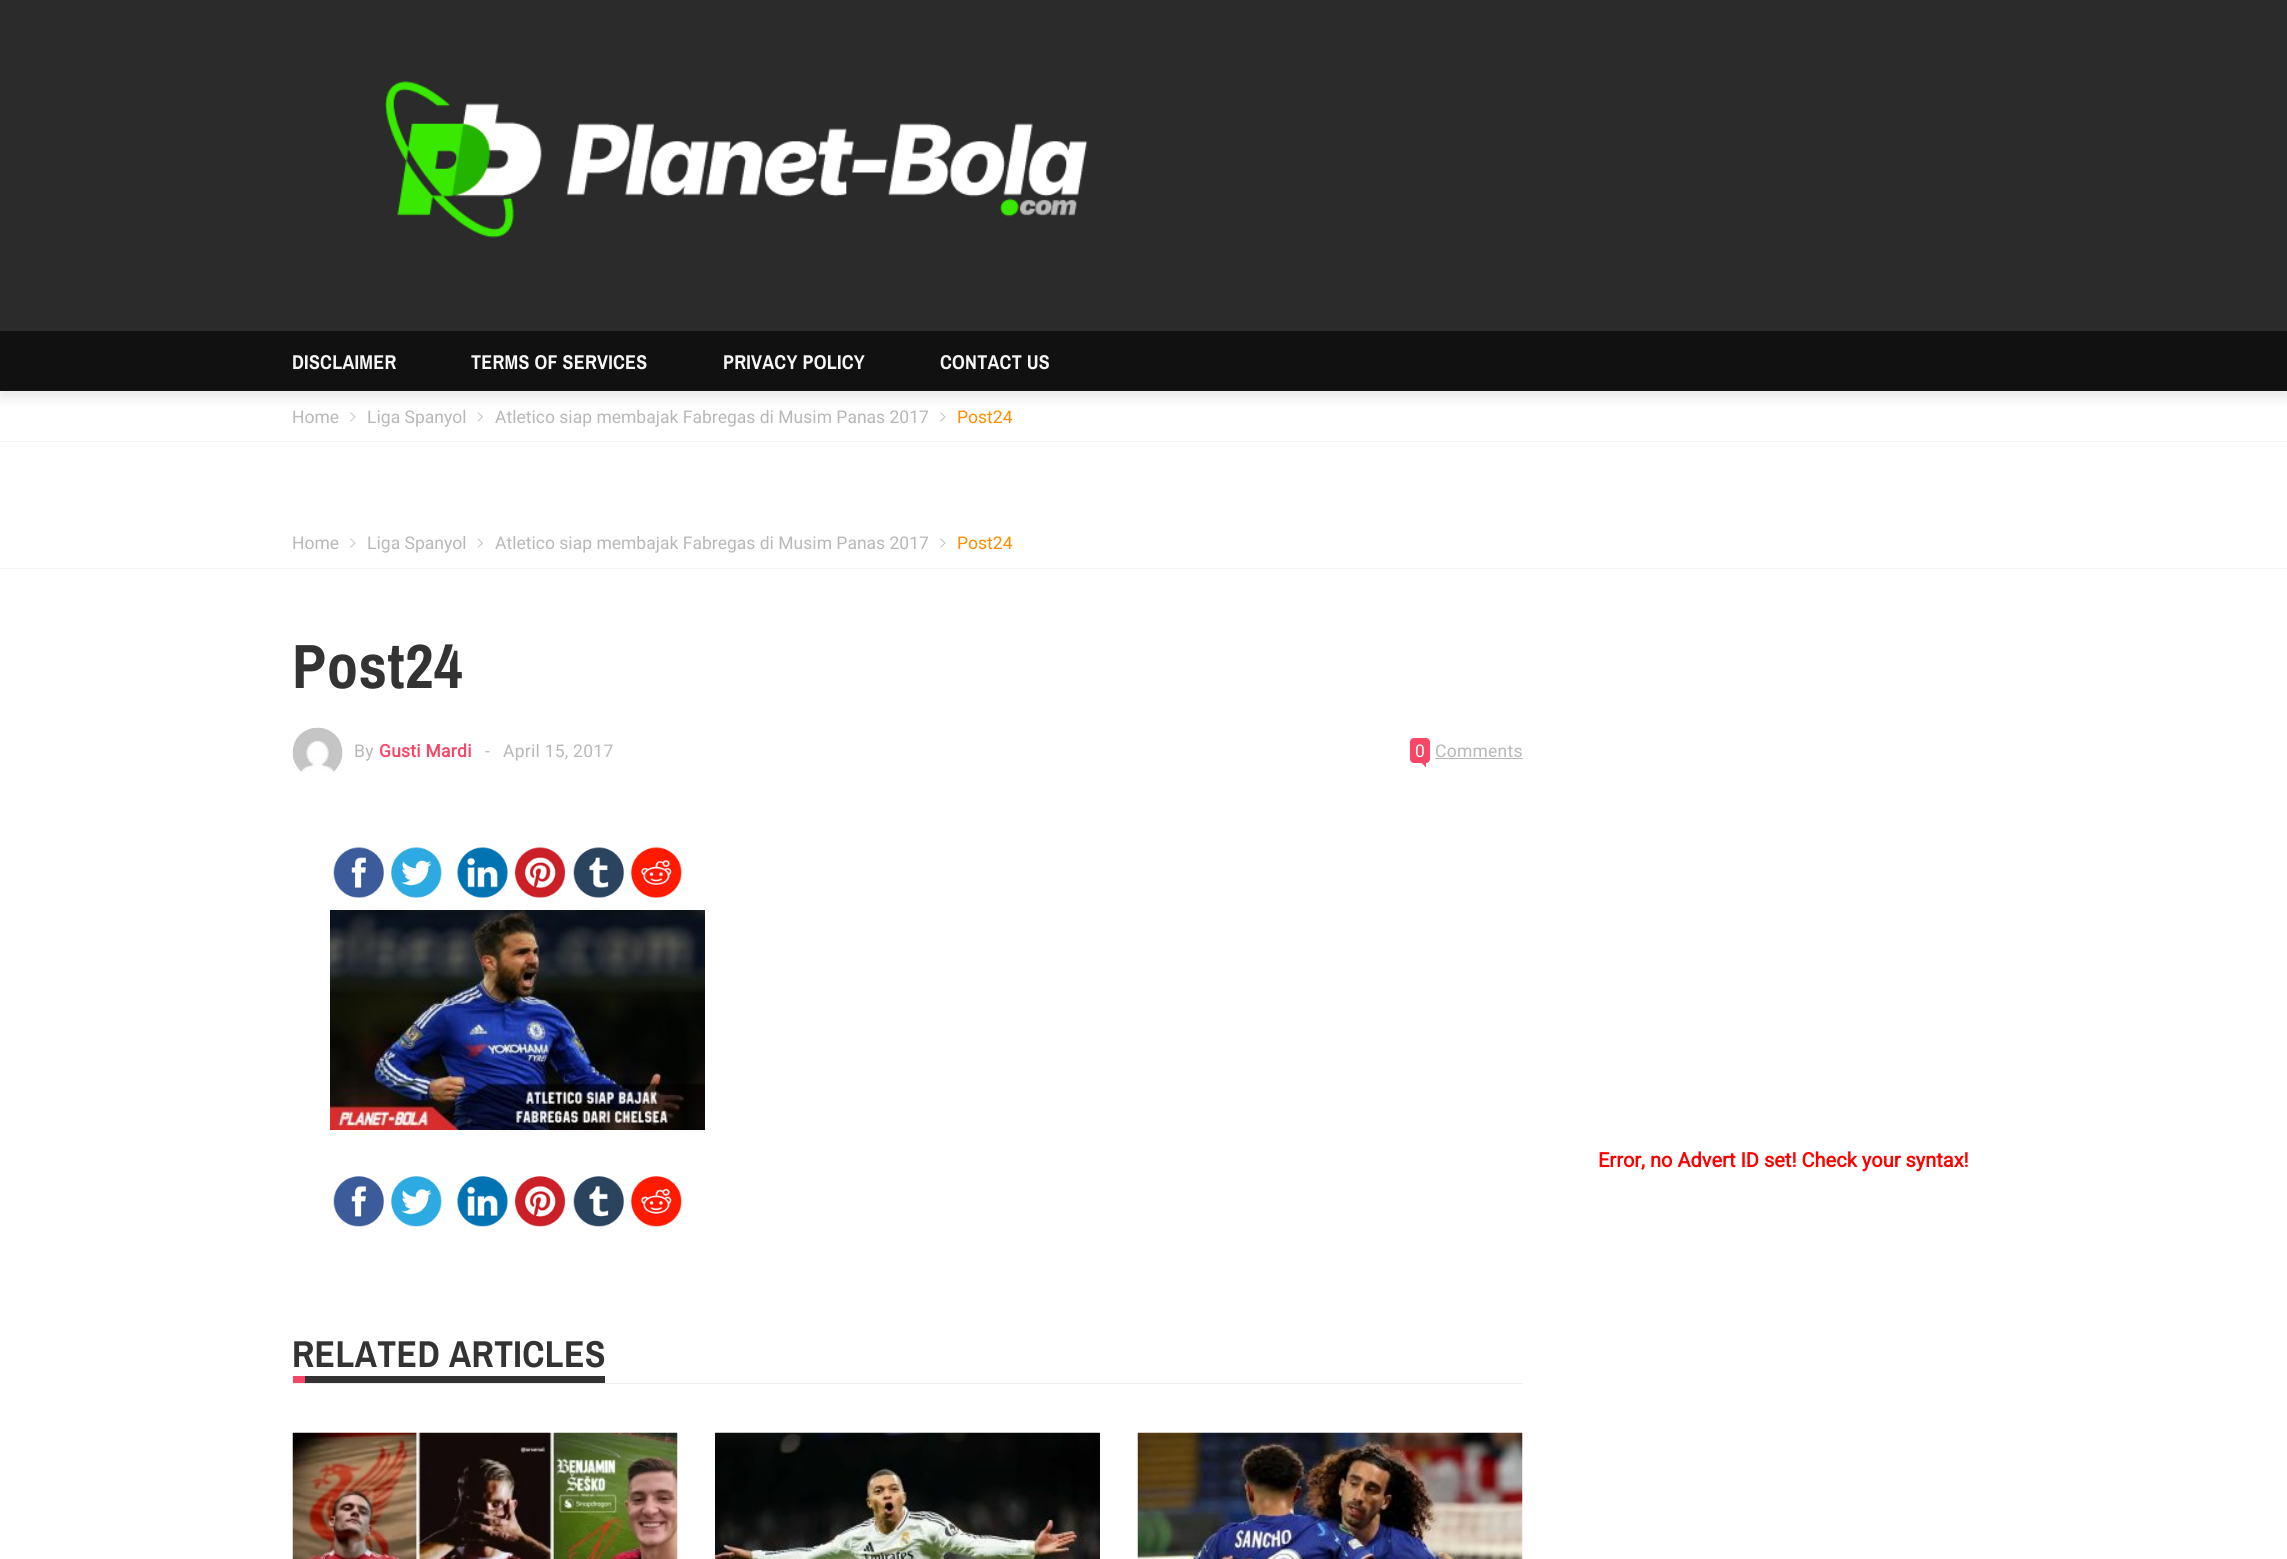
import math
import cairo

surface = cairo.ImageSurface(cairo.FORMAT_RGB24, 2287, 1559)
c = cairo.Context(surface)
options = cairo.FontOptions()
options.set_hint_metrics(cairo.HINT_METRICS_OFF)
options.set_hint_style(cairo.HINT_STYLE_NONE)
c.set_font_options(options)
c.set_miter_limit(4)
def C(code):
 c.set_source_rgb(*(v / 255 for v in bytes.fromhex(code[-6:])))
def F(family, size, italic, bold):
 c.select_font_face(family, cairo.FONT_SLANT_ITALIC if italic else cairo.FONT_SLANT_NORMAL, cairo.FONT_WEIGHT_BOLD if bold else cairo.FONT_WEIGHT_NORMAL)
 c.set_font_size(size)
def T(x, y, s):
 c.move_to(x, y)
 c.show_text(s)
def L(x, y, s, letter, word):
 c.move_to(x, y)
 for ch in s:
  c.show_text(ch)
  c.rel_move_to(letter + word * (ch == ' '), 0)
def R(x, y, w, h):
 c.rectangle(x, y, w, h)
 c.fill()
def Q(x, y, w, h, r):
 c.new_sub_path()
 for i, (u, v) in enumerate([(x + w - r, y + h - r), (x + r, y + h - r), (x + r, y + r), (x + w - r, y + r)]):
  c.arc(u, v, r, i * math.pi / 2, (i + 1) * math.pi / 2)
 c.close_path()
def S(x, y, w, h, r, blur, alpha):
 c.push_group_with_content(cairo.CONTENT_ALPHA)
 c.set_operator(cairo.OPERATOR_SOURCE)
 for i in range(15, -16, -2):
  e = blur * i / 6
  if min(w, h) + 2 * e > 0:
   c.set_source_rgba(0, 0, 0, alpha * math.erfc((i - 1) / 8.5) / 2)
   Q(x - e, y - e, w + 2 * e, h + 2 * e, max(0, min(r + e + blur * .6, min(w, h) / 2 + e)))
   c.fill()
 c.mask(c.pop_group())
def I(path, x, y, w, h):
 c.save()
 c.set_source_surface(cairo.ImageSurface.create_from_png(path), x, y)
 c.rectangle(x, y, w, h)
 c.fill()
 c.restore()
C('ffffff')
c.paint()
C('2a2b2a')
R(0,0,2287,331)
I('1.png',385,81,703,157)
I('2.png',350,412,6,10)
I('3.png',477,412,6,10)
I('2.png',940,412,6,10)
C('181718')
S(0,338,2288,60,0,6,.1)
C('111111')
R(0,331,2287,60)
F('Archivo Narrow',20,0,1)
C('f5f5f5')
L(292,369,'DISCLAIMER',.25,0)
L(471,369,'TERMS OF SERVICES',.25,0)
L(723,369,'PRIVACY POLICY',.25,0)
L(940,369,'CONTACT US',.25,0)
R(0,441,2287,1)
F('Heebo',17.5,0,0)
C('b8b8b8')
T(292,423,'Home')
T(367,423,'Liga Spanyol')
T(495,423,'Atletico siap membajak Fabregas di Musim Panas 2017')
C('ff8d00')
T(957,423,'Post24')
C('f5f5f5')
R(0,568,2287,1)
C('b8b8b8')
T(292,549,'Home')
I('4.png',350,538,6,10)
T(367,549,'Liga Spanyol')
I('5.png',477,538,6,10)
T(495,549,'Atletico siap membajak Fabregas di Musim Panas 2017')
I('4.png',940,538,6,10)
C('ff8d00')
T(957,549,'Post24')
F('Archivo Narrow',62.5,0,1)
C('333333')
L(292,688,'Post24',.5,0)
I('6.png',292,727,51,45)
F('Heebo',17.5,0,0)
C('b8b8b8')
L(354,757,'By',.25,0)
F('Heebo',17.5,0,1)
C('f84666')
L(379,757,'Gusti Mardi',.25,0)
F('Heebo',17.5,0,0)
C('b8b8b8')
L(485,757,'-',.25,0)
L(503,757,'April 15, 2017',.25,0)
C('f84666')
Q(1410,738,20,25,4)
c.fill()
C('ffffff')
L(1415,757,'0',.25,0)
C('f84666')
c.new_path()
c.move_to(1419,760)
c.line_to(1426,760)
c.line_to(1422.5,764)
c.close_path()
c.fill()
c.new_path()
c.move_to(1426,760)
c.line_to(1426,767.5)
c.line_to(1422.5,764)
c.close_path()
c.fill()
C('b8b8b8')
L(1435,757,'Comments',.25,0)
R(1435,758,88,1)
I('7.png',333,847,51,51)
I('8.png',391,847,51,51)
I('9.png',457,847,51,51)
I('10.png',515,847,50,51)
I('11.png',573,847,51,51)
I('12.png',631,847,51,51)
I('13.png',330,910,375,220)
I('14.png',333,1176,51,51)
I('15.png',391,1176,51,51)
I('16.png',457,1176,51,51)
I('17.png',515,1176,50,51)
I('18.png',573,1176,51,51)
I('19.png',631,1176,51,51)
C('eeeeee')
R(293,1383,1230,1)
F('Archivo Narrow',37.5,0,1)
C('333333')
L(292,1367,'RELATED ARTICLES',.4,0)
C('f84666')
R(293,1376,12,7)
C('333333')
R(305,1376,300,7)
I('20.png',292,1432,386,127)
I('21.png',715,1432,385,127)
I('22.png',1137,1432,386,127)
F('Heebo',20,0,1)
C('ff0000')
T(1598,1167,'Error, no Advert ID set! Check your syntax!')
surface.write_to_png('o.png')
